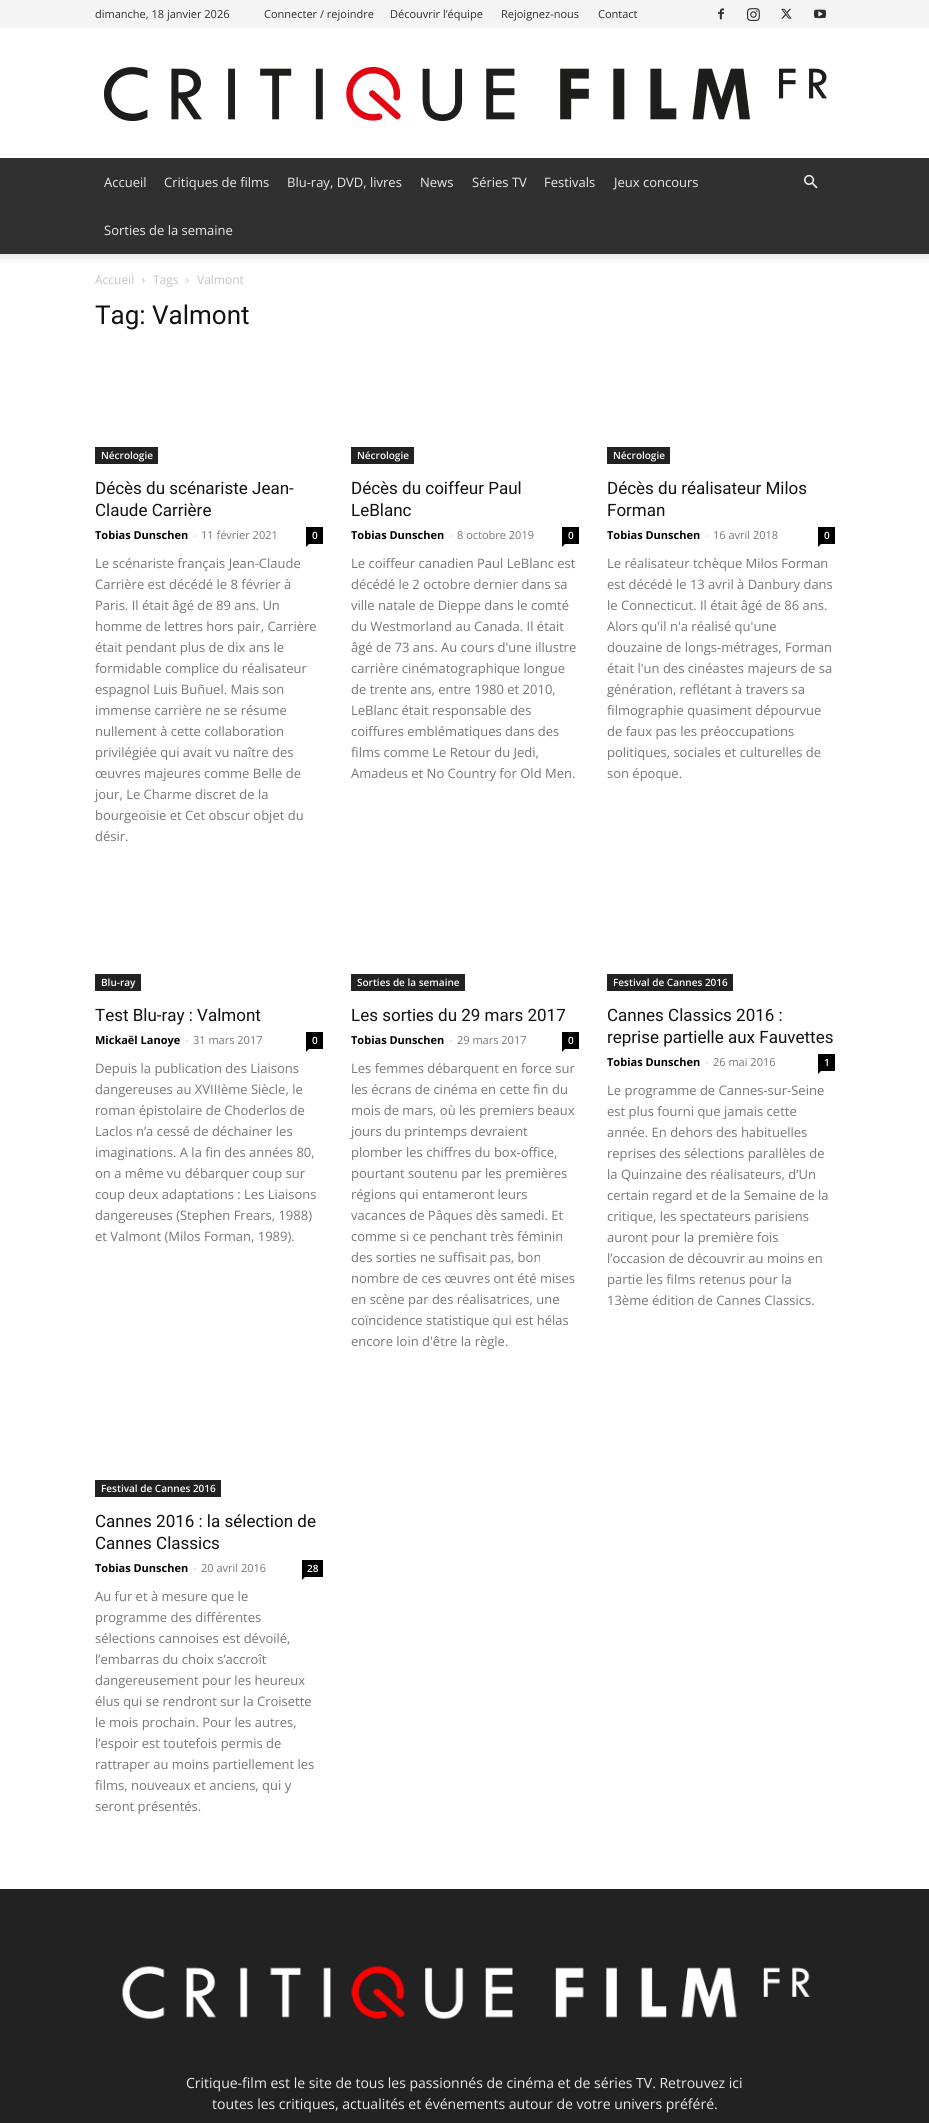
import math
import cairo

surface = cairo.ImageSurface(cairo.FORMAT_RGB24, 929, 2123)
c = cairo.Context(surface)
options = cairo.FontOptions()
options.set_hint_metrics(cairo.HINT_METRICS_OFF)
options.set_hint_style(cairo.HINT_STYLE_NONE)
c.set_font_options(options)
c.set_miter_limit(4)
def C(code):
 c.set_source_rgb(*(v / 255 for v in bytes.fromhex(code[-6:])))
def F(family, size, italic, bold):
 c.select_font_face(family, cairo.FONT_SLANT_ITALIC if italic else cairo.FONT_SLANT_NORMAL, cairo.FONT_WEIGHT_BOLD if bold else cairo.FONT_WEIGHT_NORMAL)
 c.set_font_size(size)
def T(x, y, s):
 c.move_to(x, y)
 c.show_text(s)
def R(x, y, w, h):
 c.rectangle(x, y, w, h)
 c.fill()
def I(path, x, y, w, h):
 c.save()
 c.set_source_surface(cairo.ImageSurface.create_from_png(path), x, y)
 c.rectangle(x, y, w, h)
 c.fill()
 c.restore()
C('ffffff')
c.paint()
C('f4f4f4')
R(0,0,929,28)
F('Open Sans',11,0,0)
C('2f2f2f')
T(95,18,'dimanche, 18 janvier 2026')
T(264,18,'Connecter / rejoindre')
T(390,18,'Découvrir l’équipe')
T(501,18,'Rejoignez-nous')
T(598,18,'Contact')
I('1.png',718,8,6,12)
I('2.png',747,8,13,13)
I('3.png',781,8,11,11)
I('4.png',814,9,12,10)
I('5.png',104,67,723,54)
C('303030')
R(0,158,929,96)
F('Open Sans',13,0,0)
C('eaeaea')
T(104,187,'Accueil')
T(164,187,'Critiques de films')
T(287,187,'Blu-ray, DVD, livres')
T(420,187,'News')
T(472,187,'Séries TV')
T(544,187,'Festivals')
T(614,187,'Jeux concours')
T(104,235,'Sorties de la semaine')
I('6.png',804,174,14,15)
I('7.png',0,254,929,9)
F('Open Sans',12,0,0)
C('c3c3c3')
T(95,284,'Accueil')
I('8.png',142,278,3,5)
T(153,284,'Tags')
I('8.png',186,278,3,5)
T(197,284,'Valmont')
F('Roboto',26,0,0)
C('111111')
T(95,324,'Tag: Valmont')
C('222222')
R(95,447,63,17)
F('Open Sans SemiBold',10,0,0)
C('ffffff')
T(101,459,'Nécrologie')
F('Roboto',17,0,0)
C('111111')
T(95,494,'Décès du scénariste Jean-')
T(95,516,'Claude Carrière')
F('Open Sans',11,0,1)
C('000000')
T(95,539,'Tobias Dunschen')
F('Open Sans',11,0,0)
C('cccccc')
T(193,539,'-')
C('767676')
T(201,539,'11 février 2021')
C('000000')
R(306,527,17,17)
F('Open Sans SemiBold',10,0,0)
C('ffffff')
T(312,539,'0')
C('000000')
c.new_path()
c.move_to(306,544)
c.line_to(309,544)
c.line_to(306,547)
c.close_path()
c.fill()
F('Open Sans',13,0,0)
C('767676')
T(95,568,'Le scénariste français Jean-Claude')
T(95,589,'Carrière est décédé le 8 février à')
T(95,610,'Paris. Il était âgé de 89 ans. Un')
T(95,631,'homme de lettres hors pair, Carrière')
T(95,652,'était pendant plus de dix ans le')
T(95,673,'formidable complice du réalisateur')
T(95,694,'espagnol Luis Buñuel. Mais son')
T(95,715,'immense carrière ne se résume')
T(95,736,'nullement à cette collaboration')
T(95,757,'privilégiée qui avait vu naître des')
T(95,778,'œuvres majeures comme Belle de')
T(95,799,'jour, Le Charme discret de la')
T(95,820,'bourgeoisie et Cet obscur objet du')
T(95,841,'désir.')
C('222222')
R(351,447,63,17)
F('Open Sans SemiBold',10,0,0)
C('ffffff')
T(357,459,'Nécrologie')
F('Roboto',17,0,0)
C('111111')
T(351,494,'Décès du coiffeur Paul')
T(351,516,'LeBlanc')
F('Open Sans',11,0,1)
C('000000')
T(351,539,'Tobias Dunschen')
F('Open Sans',11,0,0)
C('cccccc')
T(449,539,'-')
C('767676')
T(457,539,'8 octobre 2019')
C('000000')
R(562,527,17,17)
F('Open Sans SemiBold',10,0,0)
C('ffffff')
T(568,539,'0')
C('000000')
c.new_path()
c.move_to(562,544)
c.line_to(565,544)
c.line_to(562,547)
c.close_path()
c.fill()
F('Open Sans',13,0,0)
C('767676')
T(351,568,'Le coiffeur canadien Paul LeBlanc est')
T(351,589,'décédé le 2 octobre dernier dans sa')
T(351,610,'ville natale de Dieppe dans le comté')
T(351,631,'du Westmorland au Canada. Il était')
T(351,652,'âgé de 73 ans. Au cours d\'une illustre')
T(351,673,'carrière cinématographique longue')
T(351,694,'de trente ans, entre 1980 et 2010,')
T(351,715,'LeBlanc était responsable des')
T(351,736,'coiffures emblématiques dans des')
T(351,757,'films comme Le Retour du Jedi,')
T(351,778,'Amadeus et No Country for Old Men.')
C('222222')
R(607,447,63,17)
F('Open Sans SemiBold',10,0,0)
C('ffffff')
T(613,459,'Nécrologie')
F('Roboto',17,0,0)
C('111111')
T(607,494,'Décès du réalisateur Milos')
T(607,516,'Forman')
F('Open Sans',11,0,1)
C('000000')
T(607,539,'Tobias Dunschen')
F('Open Sans',11,0,0)
C('cccccc')
T(705,539,'-')
C('767676')
T(713,539,'16 avril 2018')
C('000000')
R(818,527,17,17)
F('Open Sans SemiBold',10,0,0)
C('ffffff')
T(824,539,'0')
C('000000')
c.new_path()
c.move_to(818,544)
c.line_to(821,544)
c.line_to(818,547)
c.close_path()
c.fill()
F('Open Sans',13,0,0)
C('767676')
T(607,568,'Le réalisateur tchèque Milos Forman')
T(607,589,'est décédé le 13 avril à Danbury dans')
T(607,610,'le Connecticut. Il était âgé de 86 ans.')
T(607,631,'Alors qu\'il n\'a réalisé qu\'une')
T(607,652,'douzaine de longs-métrages, Forman')
T(607,673,'était l\'un des cinéastes majeurs de sa')
T(607,694,'génération, reflétant à travers sa')
T(607,715,'filmographie quasiment dépourvue')
T(607,736,'de faux pas les préoccupations')
T(607,757,'politiques, sociales et culturelles de')
T(607,778,'son époque.')
C('222222')
R(95,974,46,17)
F('Open Sans SemiBold',10,0,0)
C('ffffff')
T(101,986,'Blu-ray')
F('Roboto',17,0,0)
C('111111')
T(95,1021,'Test Blu-ray : Valmont')
F('Open Sans',11,0,1)
C('000000')
T(95,1044,'Mickaël Lanoye')
F('Open Sans',11,0,0)
C('cccccc')
T(185,1044,'-')
C('767676')
T(193,1044,'31 mars 2017')
C('000000')
R(306,1032,17,17)
F('Open Sans SemiBold',10,0,0)
C('ffffff')
T(312,1044,'0')
C('000000')
c.new_path()
c.move_to(306,1049)
c.line_to(309,1049)
c.line_to(306,1052)
c.close_path()
c.fill()
F('Open Sans',13,0,0)
C('767676')
T(95,1073,'Depuis la publication des Liaisons')
T(95,1094,'dangereuses au XVIIIème Siècle, le')
T(95,1115,'roman épistolaire de Choderlos de')
T(95,1136,'Laclos n’a cessé de déchainer les')
T(95,1157,'imaginations. A la fin des années 80,')
T(95,1178,'on a même vu débarquer coup sur')
T(95,1199,'coup deux adaptations : Les Liaisons')
T(95,1220,'dangereuses (Stephen Frears, 1988)')
T(95,1241,'et Valmont (Milos Forman, 1989).')
C('222222')
R(351,974,114,17)
F('Open Sans SemiBold',10,0,0)
C('ffffff')
T(357,986,'Sorties de la semaine')
F('Roboto',17,0,0)
C('111111')
T(351,1021,'Les sorties du 29 mars 2017')
F('Open Sans',11,0,1)
C('000000')
T(351,1044,'Tobias Dunschen')
F('Open Sans',11,0,0)
C('cccccc')
T(449,1044,'-')
C('767676')
T(457,1044,'29 mars 2017')
C('000000')
R(562,1032,17,17)
F('Open Sans SemiBold',10,0,0)
C('ffffff')
T(568,1044,'0')
C('000000')
c.new_path()
c.move_to(562,1049)
c.line_to(565,1049)
c.line_to(562,1052)
c.close_path()
c.fill()
F('Open Sans',13,0,0)
C('767676')
T(351,1073,'Les femmes débarquent en force sur')
T(351,1094,'les écrans de cinéma en cette fin du')
T(351,1115,'mois de mars, où les premiers beaux')
T(351,1136,'jours du printemps devraient')
T(351,1157,'plomber les chiffres du box-office,')
T(351,1178,'pourtant soutenu par les premières')
T(351,1199,'régions qui entameront leurs')
T(351,1220,'vacances de Pâques dès samedi. Et')
T(351,1241,'comme si ce penchant très féminin')
T(351,1262,'des sorties ne suffisait pas, bon')
T(351,1283,'nombre de ces œuvres ont été mises')
T(351,1304,'en scène par des réalisatrices, une')
T(351,1325,'coïncidence statistique qui est hélas')
T(351,1346,'encore loin d\'être la règle.')
C('222222')
R(607,974,126,17)
F('Open Sans SemiBold',10,0,0)
C('ffffff')
T(613,986,'Festival de Cannes 2016')
F('Roboto',17,0,0)
C('111111')
T(607,1021,'Cannes Classics 2016 :')
T(607,1043,'reprise partielle aux Fauvettes')
F('Open Sans',11,0,1)
C('000000')
T(607,1066,'Tobias Dunschen')
F('Open Sans',11,0,0)
C('cccccc')
T(705,1066,'-')
C('767676')
T(713,1066,'26 mai 2016')
C('000000')
R(818,1054,17,17)
F('Open Sans SemiBold',10,0,0)
C('ffffff')
T(824,1066,'1')
C('000000')
c.new_path()
c.move_to(818,1071)
c.line_to(821,1071)
c.line_to(818,1074)
c.close_path()
c.fill()
F('Open Sans',13,0,0)
C('767676')
T(607,1095,'Le programme de Cannes-sur-Seine')
T(607,1116,'est plus fourni que jamais cette')
T(607,1137,'année. En dehors des habituelles')
T(607,1158,'reprises des sélections parallèles de')
T(607,1179,'la Quinzaine des réalisateurs, d’Un')
T(607,1200,'certain regard et de la Semaine de la')
T(607,1221,'critique, les spectateurs parisiens')
T(607,1242,'auront pour la première fois')
T(607,1263,'l’occasion de découvrir au moins en')
T(607,1284,'partie les films retenus pour la')
T(607,1305,'13ème édition de Cannes Classics.')
C('222222')
R(95,1480,126,17)
F('Open Sans SemiBold',10,0,0)
C('ffffff')
T(101,1492,'Festival de Cannes 2016')
F('Roboto',17,0,0)
C('111111')
T(95,1527,'Cannes 2016 : la sélection de')
T(95,1549,'Cannes Classics')
F('Open Sans',11,0,1)
C('000000')
T(95,1572,'Tobias Dunschen')
F('Open Sans',11,0,0)
C('cccccc')
T(193,1572,'-')
C('767676')
T(201,1572,'20 avril 2016')
C('000000')
R(302,1560,21,17)
F('Open Sans SemiBold',10,0,0)
C('ffffff')
T(307,1572,'28')
C('000000')
c.new_path()
c.move_to(302,1577)
c.line_to(305,1577)
c.line_to(302,1580)
c.close_path()
c.fill()
F('Open Sans',13,0,0)
C('767676')
T(95,1601,'Au fur et à mesure que le')
T(95,1622,'programme des différentes')
T(95,1643,'sélections cannoises est dévoilé,')
T(95,1664,'l’embarras du choix s’accroît')
T(95,1685,'dangereusement pour les heureux')
T(95,1706,'élus qui se rendront sur la Croisette')
T(95,1727,'le mois prochain. Pour les autres,')
T(95,1748,'l’espoir est toutefois permis de')
T(95,1769,'rattraper au moins partiellement les')
T(95,1790,'films, nouveaux et anciens, qui y')
T(95,1811,'seront présentés.')
C('222222')
R(0,1889,929,234)
I('9.png',122,1966,688,53)
F('Open Sans',14,0,0)
C('eaeaea')
T(186,2088,'Critique-film est le site de tous les passionnés de cinéma et de séries TV. Retrouvez ici')
T(212,2109,'toutes les critiques, actualités et événements autour de votre univers préféré.')
surface.write_to_png('o.png')
